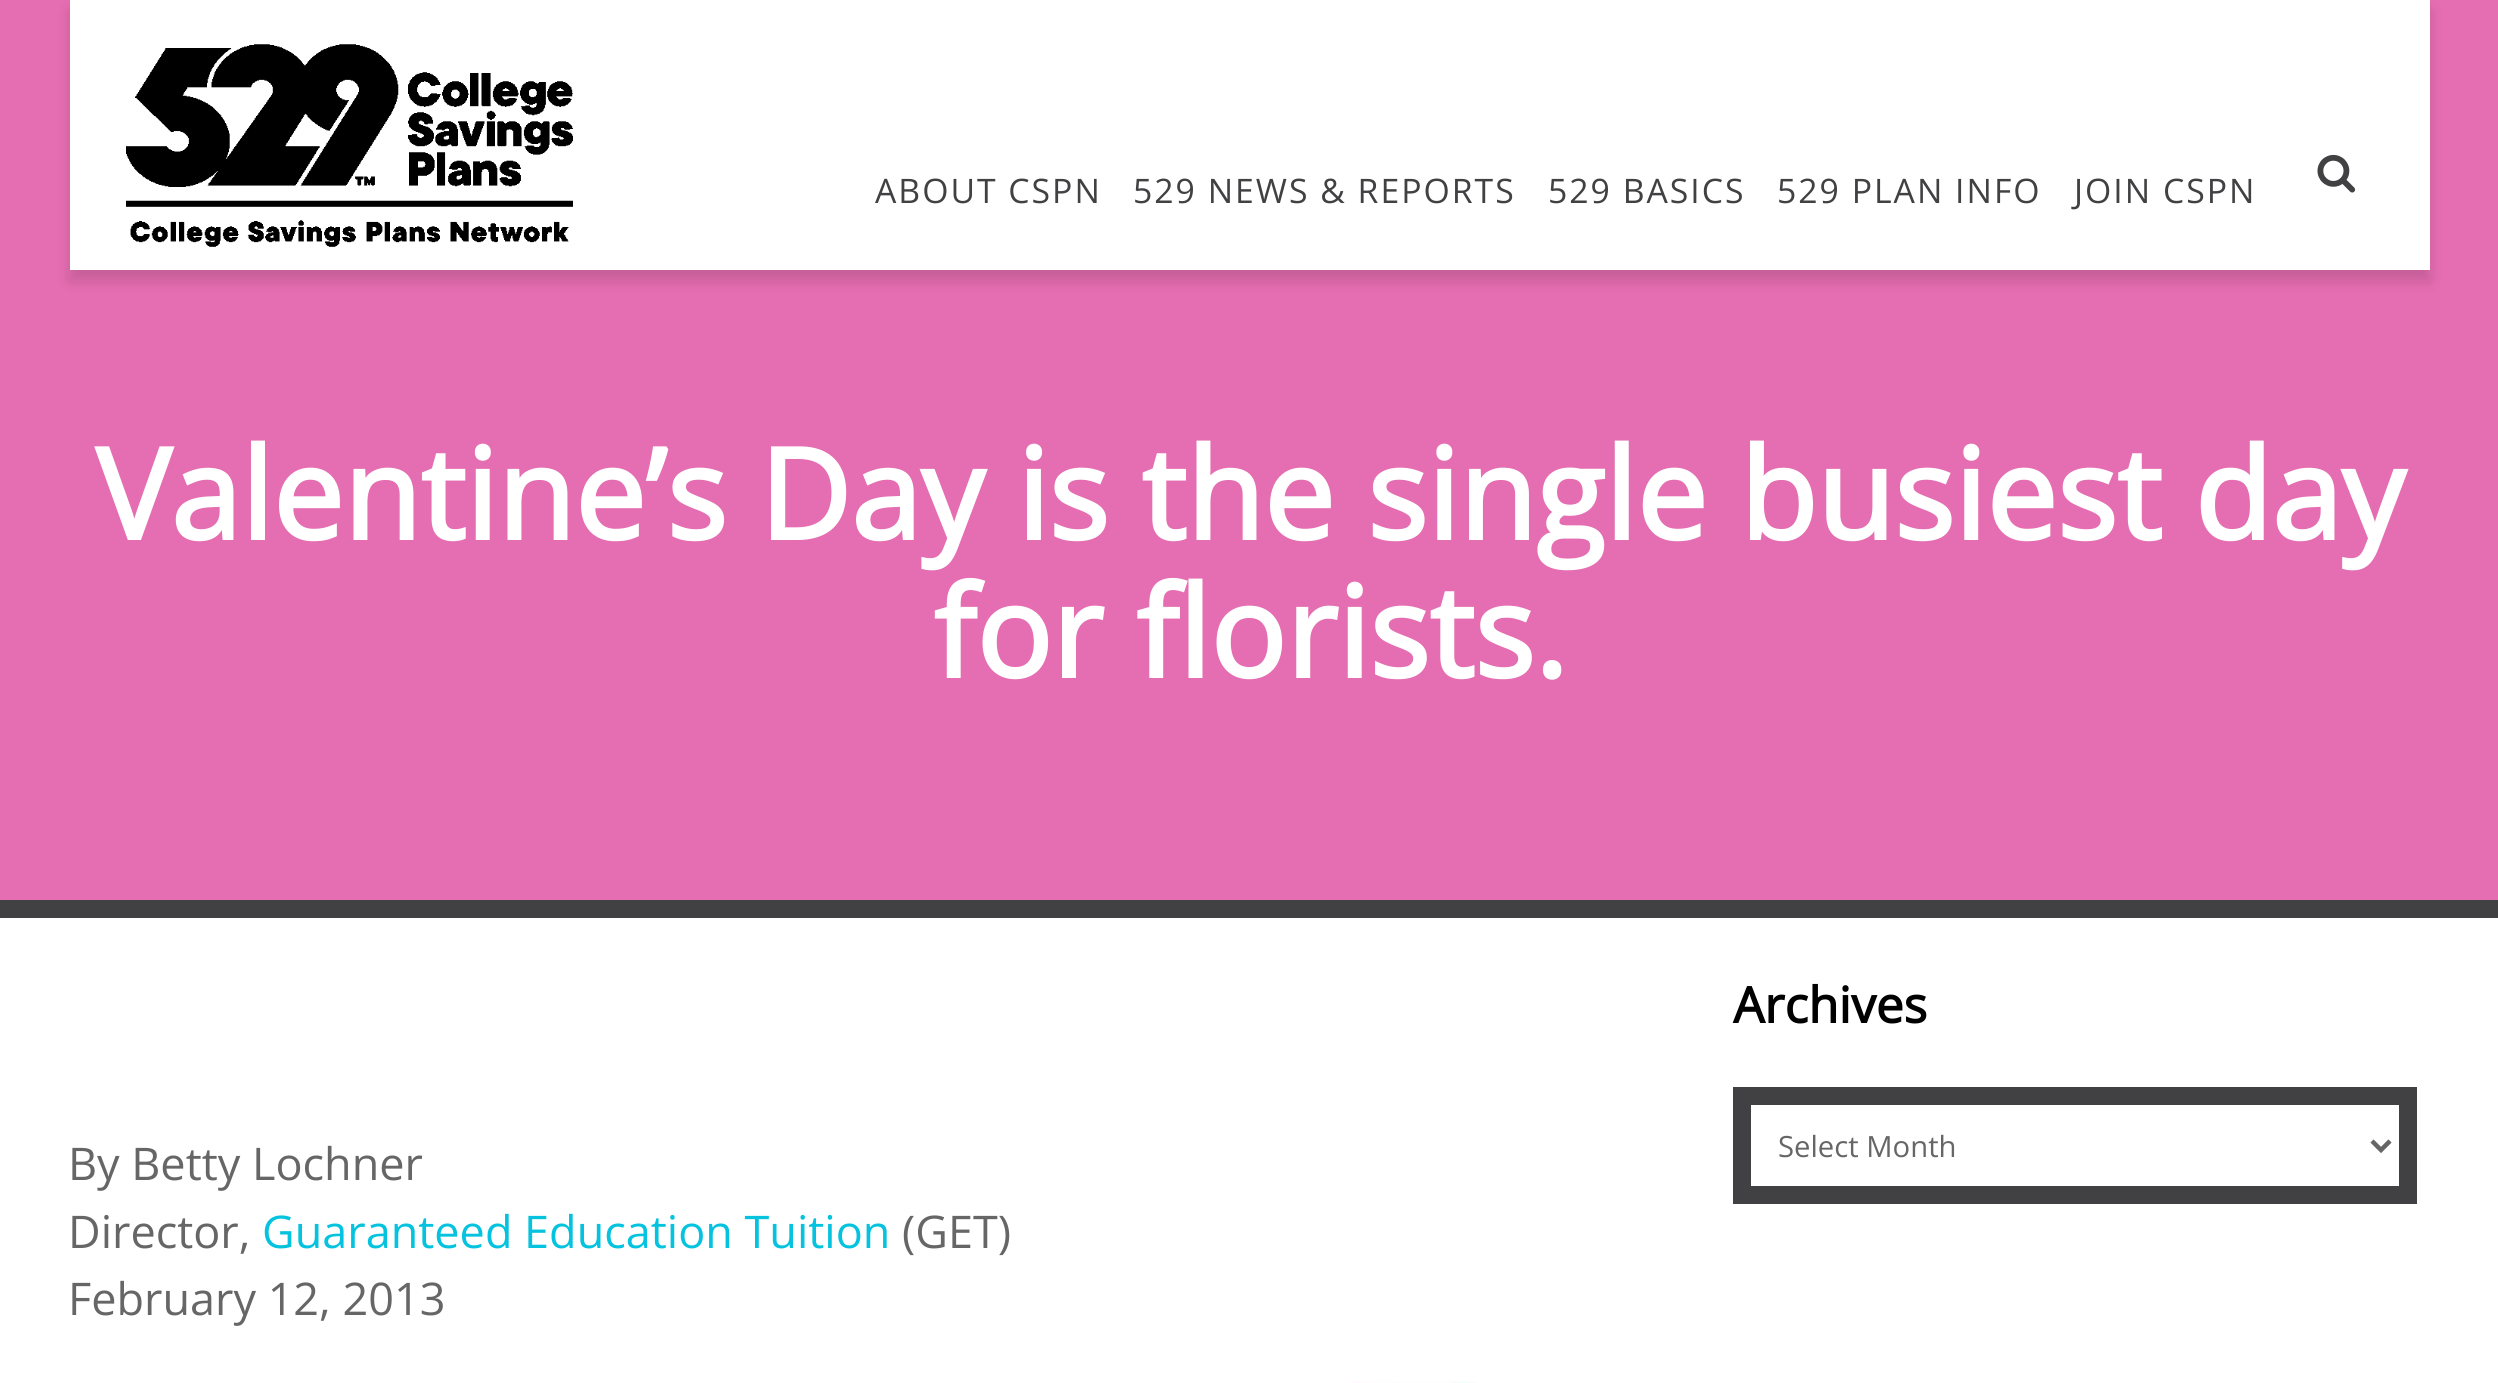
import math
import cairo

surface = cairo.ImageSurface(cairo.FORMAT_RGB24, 2498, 1383)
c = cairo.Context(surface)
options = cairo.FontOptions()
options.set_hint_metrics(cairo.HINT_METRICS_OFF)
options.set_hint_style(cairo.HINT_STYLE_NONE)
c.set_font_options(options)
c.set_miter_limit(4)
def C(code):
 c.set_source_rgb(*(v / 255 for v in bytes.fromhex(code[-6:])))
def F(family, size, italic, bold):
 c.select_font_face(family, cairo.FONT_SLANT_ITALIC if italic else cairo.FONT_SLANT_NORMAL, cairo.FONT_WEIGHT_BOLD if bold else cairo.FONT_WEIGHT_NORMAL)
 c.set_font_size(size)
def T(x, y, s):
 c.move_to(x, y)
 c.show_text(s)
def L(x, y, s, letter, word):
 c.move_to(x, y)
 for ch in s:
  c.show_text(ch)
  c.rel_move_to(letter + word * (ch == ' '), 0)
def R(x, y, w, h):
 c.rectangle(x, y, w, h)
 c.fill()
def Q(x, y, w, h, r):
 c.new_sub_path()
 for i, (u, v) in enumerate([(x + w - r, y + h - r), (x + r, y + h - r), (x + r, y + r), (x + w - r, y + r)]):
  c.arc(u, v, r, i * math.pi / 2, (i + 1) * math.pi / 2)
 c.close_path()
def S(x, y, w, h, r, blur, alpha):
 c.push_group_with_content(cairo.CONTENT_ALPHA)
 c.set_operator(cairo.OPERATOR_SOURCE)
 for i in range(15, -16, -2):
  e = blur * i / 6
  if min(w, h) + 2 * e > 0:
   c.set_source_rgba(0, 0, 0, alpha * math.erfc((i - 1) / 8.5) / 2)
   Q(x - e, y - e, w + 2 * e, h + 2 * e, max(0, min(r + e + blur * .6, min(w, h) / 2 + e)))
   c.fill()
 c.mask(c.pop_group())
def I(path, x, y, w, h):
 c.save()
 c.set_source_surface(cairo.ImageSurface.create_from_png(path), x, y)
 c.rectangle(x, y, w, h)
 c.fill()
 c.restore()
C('ffffff')
c.paint()
C('e56db1')
R(0,0,2498,900)
C('414042')
R(0,900,2498,18)
C('000000')
S(70,11,2360,270,0,7,.14)
C('ffffff')
R(70,0,2360,270)
I('1.png',126,44,447,203)
F('Open Sans',33.75,0,0)
C('414042')
L(875,203,'ABOUT CSPN',2,0)
L(1133,203,'529 NEWS & REPORTS',2,0)
L(1548,203,'529 BASICS',2,0)
L(1777,203,'529 PLAN INFO',2,0)
L(2074,203,'JOIN CSPN',2,0)
I('2.png',2317,154,39,39)
F('Open Sans',126,0,1)
C('ffffff')
T(95,540,'Valentine’s Day is the single busiest day')
T(933,678,'for florists.')
F('Open Sans',49.5,0,1)
C('000000')
T(1733,1023,'Archives')
c.rectangle(1742,1096,666,99)
C('414042')
c.set_line_width(18)
c.stroke()
c.new_path()
c.move_to(2372,1141)
c.line_to(2381,1150)
c.line_to(2390,1141)
C('666666')
c.set_line_width(4.5)
c.stroke()
F('Open Sans',29.25,0,0)
T(1778,1157,'Select Month')
F('Open Sans',45,0,0)
T(68,1180,'By Betty Lochner')
T(68,1248,'Director,')
C('05c3de')
T(262,1248,'Guaranteed Education Tuition')
C('666666')
T(902,1248,'(GET)')
T(68,1315,'February 12, 2013')
I('3.png',1352,1381,124,2)
surface.write_to_png('o.png')
